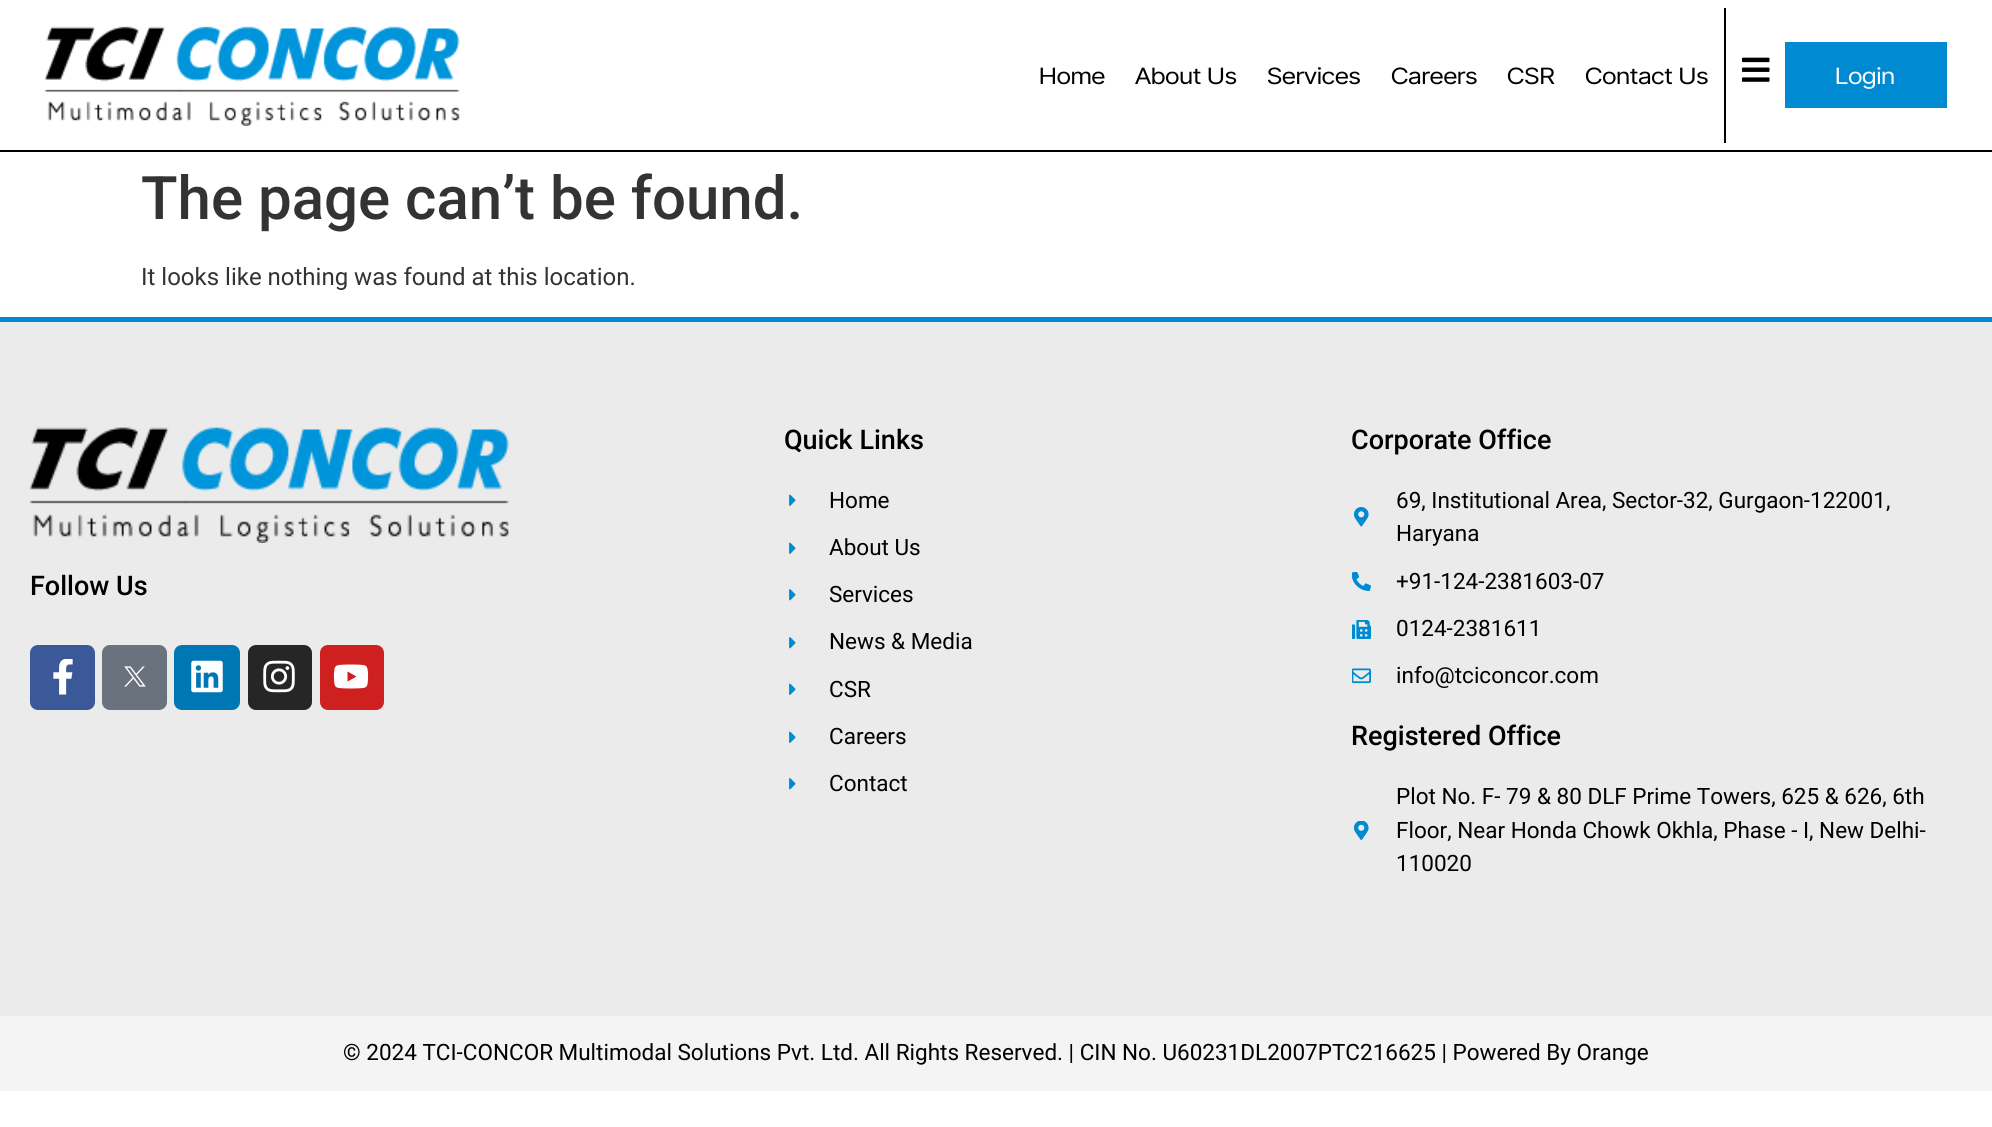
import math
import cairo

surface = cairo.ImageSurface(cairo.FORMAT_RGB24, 1992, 1127)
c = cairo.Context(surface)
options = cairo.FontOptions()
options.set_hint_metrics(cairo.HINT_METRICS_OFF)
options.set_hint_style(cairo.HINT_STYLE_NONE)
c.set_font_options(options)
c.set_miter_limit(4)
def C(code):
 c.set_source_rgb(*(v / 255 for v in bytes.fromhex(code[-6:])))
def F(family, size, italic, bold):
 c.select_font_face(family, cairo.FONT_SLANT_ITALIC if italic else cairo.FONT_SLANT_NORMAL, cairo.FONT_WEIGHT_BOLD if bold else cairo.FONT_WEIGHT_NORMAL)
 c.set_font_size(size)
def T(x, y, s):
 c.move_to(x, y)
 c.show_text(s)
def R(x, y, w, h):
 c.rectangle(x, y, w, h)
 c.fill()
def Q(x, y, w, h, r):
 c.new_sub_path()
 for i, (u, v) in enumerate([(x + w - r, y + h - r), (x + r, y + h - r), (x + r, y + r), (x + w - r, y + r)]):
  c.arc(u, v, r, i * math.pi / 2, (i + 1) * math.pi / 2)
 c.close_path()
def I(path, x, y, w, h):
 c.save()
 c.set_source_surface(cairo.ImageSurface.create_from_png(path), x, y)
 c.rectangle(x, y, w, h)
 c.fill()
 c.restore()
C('ffffff')
c.paint()
C('000000')
R(0,150,1992,2)
I('1.png',45,26,415,100)
R(1724,8,2,135)
F('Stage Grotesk',25.5,0,0)
T(1039,84,'Home')
T(1135,84,'About Us')
T(1267,84,'Services')
T(1391,84,'Careers')
T(1507,84,'CSR')
T(1585,84,'Contact Us')
I('2.png',1741,57,29,25)
C('008ad2')
R(1785,42,162,66)
C('ffffff')
T(1835,84,'Login')
F('Roboto Medium',60,0,0)
C('333333')
T(141,219,'The page can’t be found.')
F('Roboto',24,0,0)
T(141,285,'It looks like nothing was found at this location.')
C('ebebeb')
R(0,322,1992,694)
C('008ad2')
R(0,317,1992,5)
I('3.png',30,427,479,116)
F('Roboto Medium',27,0,0)
C('000000')
T(30,595,'Follow Us')
C('3b5998')
Q(30,645,65,65,8)
c.fill()
I('4.png',53,659,20,36)
C('69727d')
Q(102,645,65,65,8)
c.fill()
I('5.png',124,666,22,21)
C('0077b5')
Q(174,645,66,65,8)
c.fill()
I('6.png',191,660,32,33)
C('262626')
Q(248,645,64,65,8)
c.fill()
I('7.png',263,660,32,33)
C('cd201f')
Q(320,645,64,65,8)
c.fill()
I('8.png',333,664,36,25)
C('000000')
T(784,449,'Quick Links')
I('9.png',789,494,7,12)
F('Roboto',22.5,0,0)
T(829,508,'Home')
I('9.png',789,542,7,12)
T(829,555,'About Us')
I('10.png',789,589,7,12)
T(829,602,'Services')
I('10.png',789,637,7,12)
T(829,649,'News & Media')
I('9.png',789,683,7,12)
T(829,697,'CSR')
I('9.png',789,731,7,12)
T(829,744,'Careers')
I('10.png',789,778,7,12)
T(829,791,'Contact')
F('Roboto Medium',27,0,0)
T(1351,449,'Corporate Office')
I('11.png',1353,507,16,20)
F('Roboto',22.5,0,0)
T(1396,508,'69, Institutional Area, Sector-32, Gurgaon-122001,')
T(1396,541,'Haryana')
I('12.png',1352,572,19,19)
T(1396,589,'+91-124-2381603-07')
I('13.png',1352,620,19,19)
T(1396,636,'0124-2381611')
I('14.png',1352,668,19,16)
T(1396,683,'info@tciconcor.com')
F('Roboto Medium',27,0,0)
T(1351,745,'Registered Office')
I('15.png',1353,821,16,19)
F('Roboto',22.5,0,0)
T(1396,804,'Plot No. F- 79 & 80 DLF Prime Towers, 625 & 626, 6th')
T(1396,838,'Floor, Near Honda Chowk Okhla, Phase - I, New Delhi-')
T(1396,871,'110020')
C('f4f4f4')
R(0,1016,1992,75)
C('000000')
T(343,1060,'© 2024 TCI-CONCOR Multimodal Solutions Pvt. Ltd. All Rights Reserved. | CIN No. U60231DL2007PTC216625 | Powered By Orange')
surface.write_to_png('o.png')
